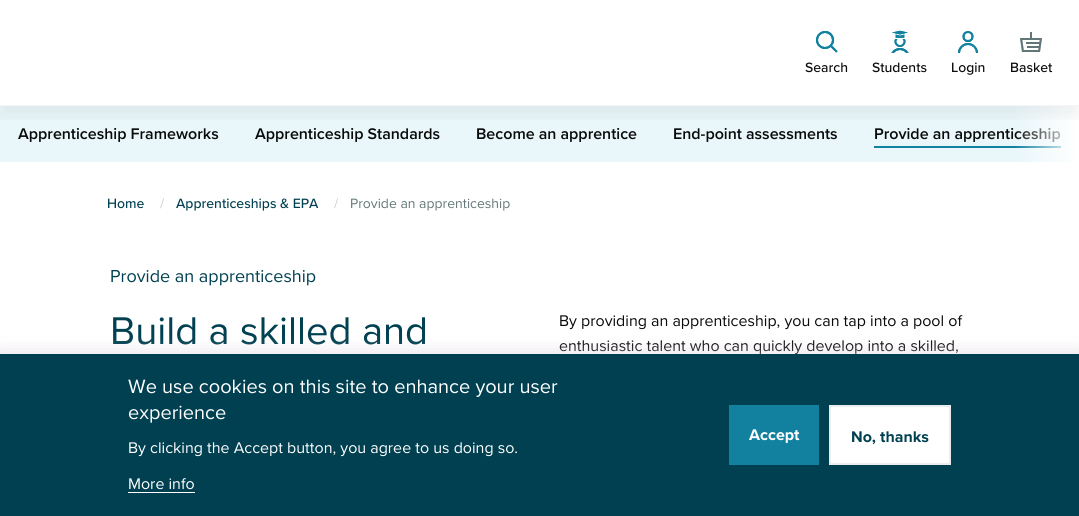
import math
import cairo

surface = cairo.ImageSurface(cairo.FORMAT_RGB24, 1079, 516)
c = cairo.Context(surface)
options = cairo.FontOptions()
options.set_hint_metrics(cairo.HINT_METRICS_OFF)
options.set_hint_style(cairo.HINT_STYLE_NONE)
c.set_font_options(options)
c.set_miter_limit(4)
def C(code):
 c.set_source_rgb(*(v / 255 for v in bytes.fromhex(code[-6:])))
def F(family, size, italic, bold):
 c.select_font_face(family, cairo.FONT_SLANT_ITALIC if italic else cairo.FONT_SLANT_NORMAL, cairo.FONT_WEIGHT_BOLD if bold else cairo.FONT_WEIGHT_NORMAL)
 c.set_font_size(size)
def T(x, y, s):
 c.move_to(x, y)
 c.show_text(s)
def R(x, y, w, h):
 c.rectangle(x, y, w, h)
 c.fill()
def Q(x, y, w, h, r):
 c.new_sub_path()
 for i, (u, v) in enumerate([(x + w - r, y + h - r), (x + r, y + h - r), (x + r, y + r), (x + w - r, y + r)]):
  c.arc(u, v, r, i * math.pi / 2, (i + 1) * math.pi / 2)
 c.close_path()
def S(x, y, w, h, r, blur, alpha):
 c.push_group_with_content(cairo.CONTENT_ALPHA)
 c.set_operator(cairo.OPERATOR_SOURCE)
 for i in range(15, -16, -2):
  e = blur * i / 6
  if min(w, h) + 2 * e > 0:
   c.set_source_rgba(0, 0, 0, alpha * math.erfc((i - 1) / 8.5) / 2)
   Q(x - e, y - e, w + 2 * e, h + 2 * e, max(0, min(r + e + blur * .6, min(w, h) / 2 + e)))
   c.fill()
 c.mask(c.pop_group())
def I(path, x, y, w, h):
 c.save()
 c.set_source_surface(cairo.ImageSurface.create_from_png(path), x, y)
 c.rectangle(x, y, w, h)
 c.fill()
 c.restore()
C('ffffff')
c.paint()
C('e9f7fa')
R(0,106,1079,56)
F('Proxima Nova SemiBold',16,0,0)
C('0a0a0a')
T(874,139,'Provide an apprenticeship')
C('12819f')
R(874,146,187,2)
gradient = cairo.LinearGradient(1015,134,1079,134)
gradient.add_color_stop_rgba(0,1,1,1,0)
gradient.add_color_stop_rgba(1,1,1,1,1)
c.set_source(gradient)
R(1016,106,63,56)
c.save()
c.rectangle(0,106,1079,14)
c.clip()
C('302d30')
S(-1,9,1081,108,0,6.5,.06)
c.restore()
C('f4f6f6')
R(0,105,1079,1)
I('1.png',816,31,22,22)
F('Proxima Nova Medium',14,0,0)
C('0a0a0a')
T(805,72,'Search')
I('2.png',891,30,18,23)
T(872,72,'Students')
I('3.png',958,31,20,22)
T(951,72,'Login')
I('4.png',1020,32,22,20)
T(1010,72,'Basket')
F('Proxima Nova SemiBold',16,0,0)
T(18,139,'Apprenticeship Frameworks')
T(255,139,'Apprenticeship Standards')
T(476,139,'Become an apprentice')
T(673,139,'End-point assessments')
F('Proxima Nova Medium',14,0,0)
C('004051')
T(107,208,'Home')
F('Proxima Nova',14,0,0)
C('cacaca')
T(160,208,'/')
F('Proxima Nova Medium',14,0,0)
C('004051')
T(176,208,'Apprenticeships & EPA')
F('Proxima Nova',14,0,0)
C('cacaca')
T(334,208,'/')
C('647778')
T(350,208,'Provide an apprenticeship')
F('Proxima Nova',18,0,0)
C('004051')
T(110,282,'Provide an apprenticeship')
F('Proxima Nova',40,0,0)
T(110,344,'Build a skilled and')
F('Proxima Nova',16,0,0)
C('0a0a0a')
T(559,326,'By providing an apprenticeship, you can tap into a pool of')
T(559,351,'enthusiastic talent who can quickly develop into a skilled,')
C('d6cfd6')
S(-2,352,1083,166,0,8,.54)
C('004051')
R(0,354,1079,162)
F('Proxima Nova',20,0,0)
C('ffffff')
T(128,393,'We use cookies on this site to enhance your user')
T(128,419,'experience')
F('Proxima Nova',16,0,0)
T(128,453,'By clicking the Accept button, you agree to us doing so.')
R(128,492,67,1)
T(128,489,'More info')
C('12819f')
R(729,405,90,60)
F('Proxima Nova',16,0,1)
C('ffffff')
T(749,440,'Accept')
c.rectangle(830,406,120,58)
c.fill_preserve()
C('eaedee')
c.stroke()
C('004051')
T(851,442,'No, thanks')
surface.write_to_png('o.png')
